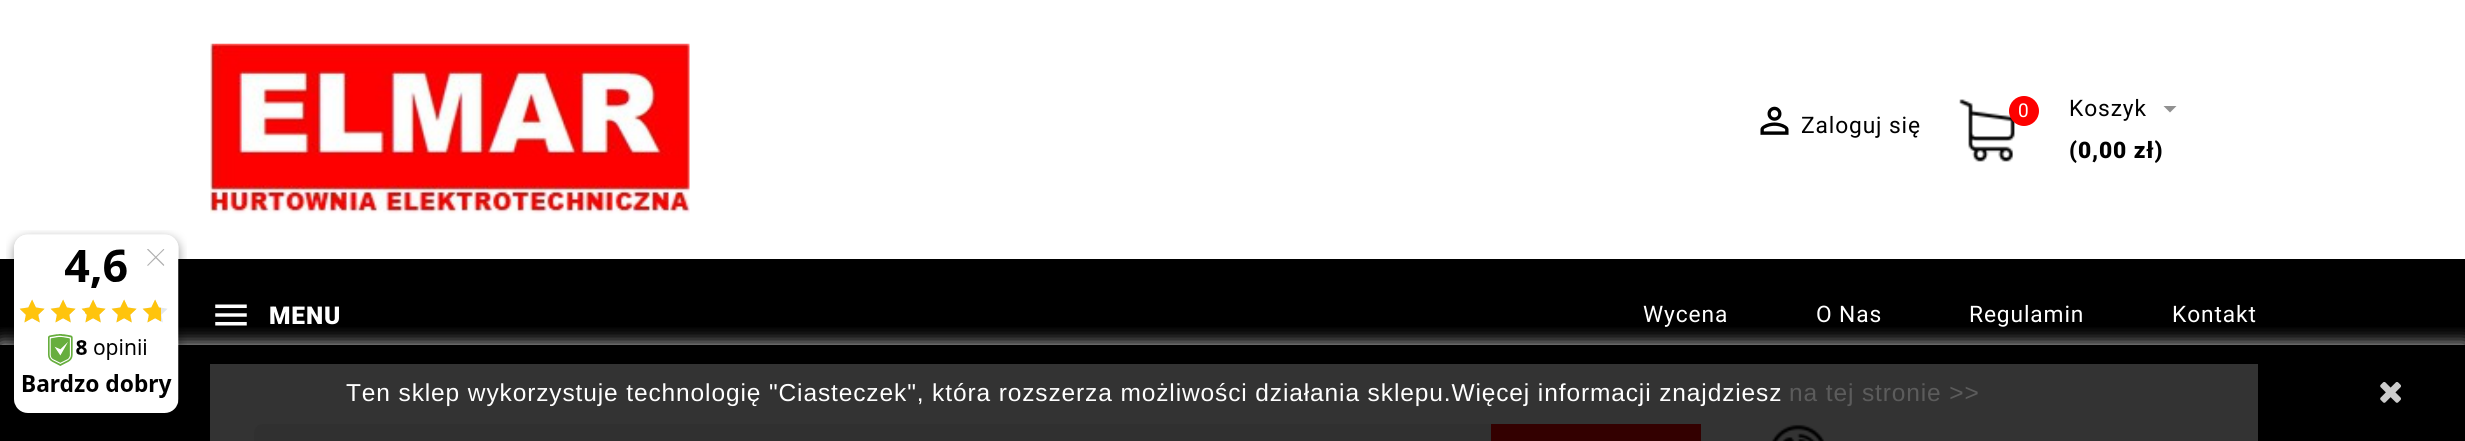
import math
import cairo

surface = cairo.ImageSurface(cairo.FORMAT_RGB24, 2465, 441)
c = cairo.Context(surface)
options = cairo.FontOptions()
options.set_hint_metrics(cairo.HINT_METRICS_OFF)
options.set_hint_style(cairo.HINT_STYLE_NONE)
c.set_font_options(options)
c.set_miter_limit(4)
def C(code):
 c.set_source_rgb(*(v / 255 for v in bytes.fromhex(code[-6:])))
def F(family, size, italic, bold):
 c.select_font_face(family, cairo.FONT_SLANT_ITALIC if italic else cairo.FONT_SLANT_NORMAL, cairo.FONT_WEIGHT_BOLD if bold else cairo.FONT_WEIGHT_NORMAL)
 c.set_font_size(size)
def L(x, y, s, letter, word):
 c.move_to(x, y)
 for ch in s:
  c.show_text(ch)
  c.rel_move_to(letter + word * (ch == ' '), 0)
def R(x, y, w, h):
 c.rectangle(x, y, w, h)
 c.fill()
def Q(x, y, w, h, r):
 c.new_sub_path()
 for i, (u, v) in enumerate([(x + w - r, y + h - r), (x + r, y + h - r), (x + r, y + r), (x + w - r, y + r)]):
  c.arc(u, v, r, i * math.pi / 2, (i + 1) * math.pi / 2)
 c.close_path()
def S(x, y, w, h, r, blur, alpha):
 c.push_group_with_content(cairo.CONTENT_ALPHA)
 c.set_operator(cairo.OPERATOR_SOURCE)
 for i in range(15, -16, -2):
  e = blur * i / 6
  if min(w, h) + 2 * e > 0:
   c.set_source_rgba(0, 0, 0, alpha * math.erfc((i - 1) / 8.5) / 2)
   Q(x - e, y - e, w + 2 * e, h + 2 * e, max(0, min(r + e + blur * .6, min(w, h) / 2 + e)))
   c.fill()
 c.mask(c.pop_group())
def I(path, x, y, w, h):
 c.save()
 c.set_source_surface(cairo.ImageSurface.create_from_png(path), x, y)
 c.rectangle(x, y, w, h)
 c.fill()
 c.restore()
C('ffffff')
c.paint()
C('000000')
R(0,259,2465,182)
I('5.png',215,304,32,22)
C('333333')
R(210,364,2048,77)
I('6.png',1771,424,54,17)
C('303030')
Q(254,424,1447,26,9)
c.fill()
C('330000')
R(1491,424,210,17)
c.save()
c.rectangle(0,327,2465,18)
c.clip()
C('cccccc')
S(0,345,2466,96,0,9,1)
c.restore()
I('1.png',6,230,181,183)
I('2.png',210,43,480,171)
I('3.png',1760,106,29,29)
F('Roboto',22.75,0,0)
C('000000')
L(1801,133,'Zaloguj się',.88,0)
I('4.png',1959,99,56,63)
C('fd0100')
c.arc(2024,111,15,0,2 * math.pi)
c.fill()
F('Roboto',19,0,0)
C('ffffff')
L(2018,117,'0',.88,0)
F('Roboto',22.75,0,0)
C('000000')
L(2069,116,'Koszyk',.88,0)
C('919191')
c.new_path()
c.move_to(2163.5,106)
c.line_to(2176.5,106)
c.line_to(2170,112.5)
c.close_path()
c.fill()
F('Roboto Black',22.75,0,0)
C('000000')
L(2069,158,'(0,00 zł)',.88,0)
F('Roboto Black',24.5,0,0)
C('ffffff')
L(269,324,'MENU',.88,0)
F('Roboto',22.75,0,0)
L(1643,322,'Wycena',.88,0)
L(1816,322,'O Nas',.88,0)
L(1969,322,'Regulamin',.88,0)
L(2172,322,'Kontakt',.88,0)
F('Liberation Sans',24.5,0,0)
L(346,401,'Ten sklep wykorzystuje technologię "Ciasteczek", która rozszerza możliwości działania sklepu.Więcej informacji znajdziesz',.88,0)
C('5c5c5c')
L(1789,401,'na tej stronie >>',.88,0)
I('7.png',2380,382,21,21)
surface.write_to_png('o.png')
